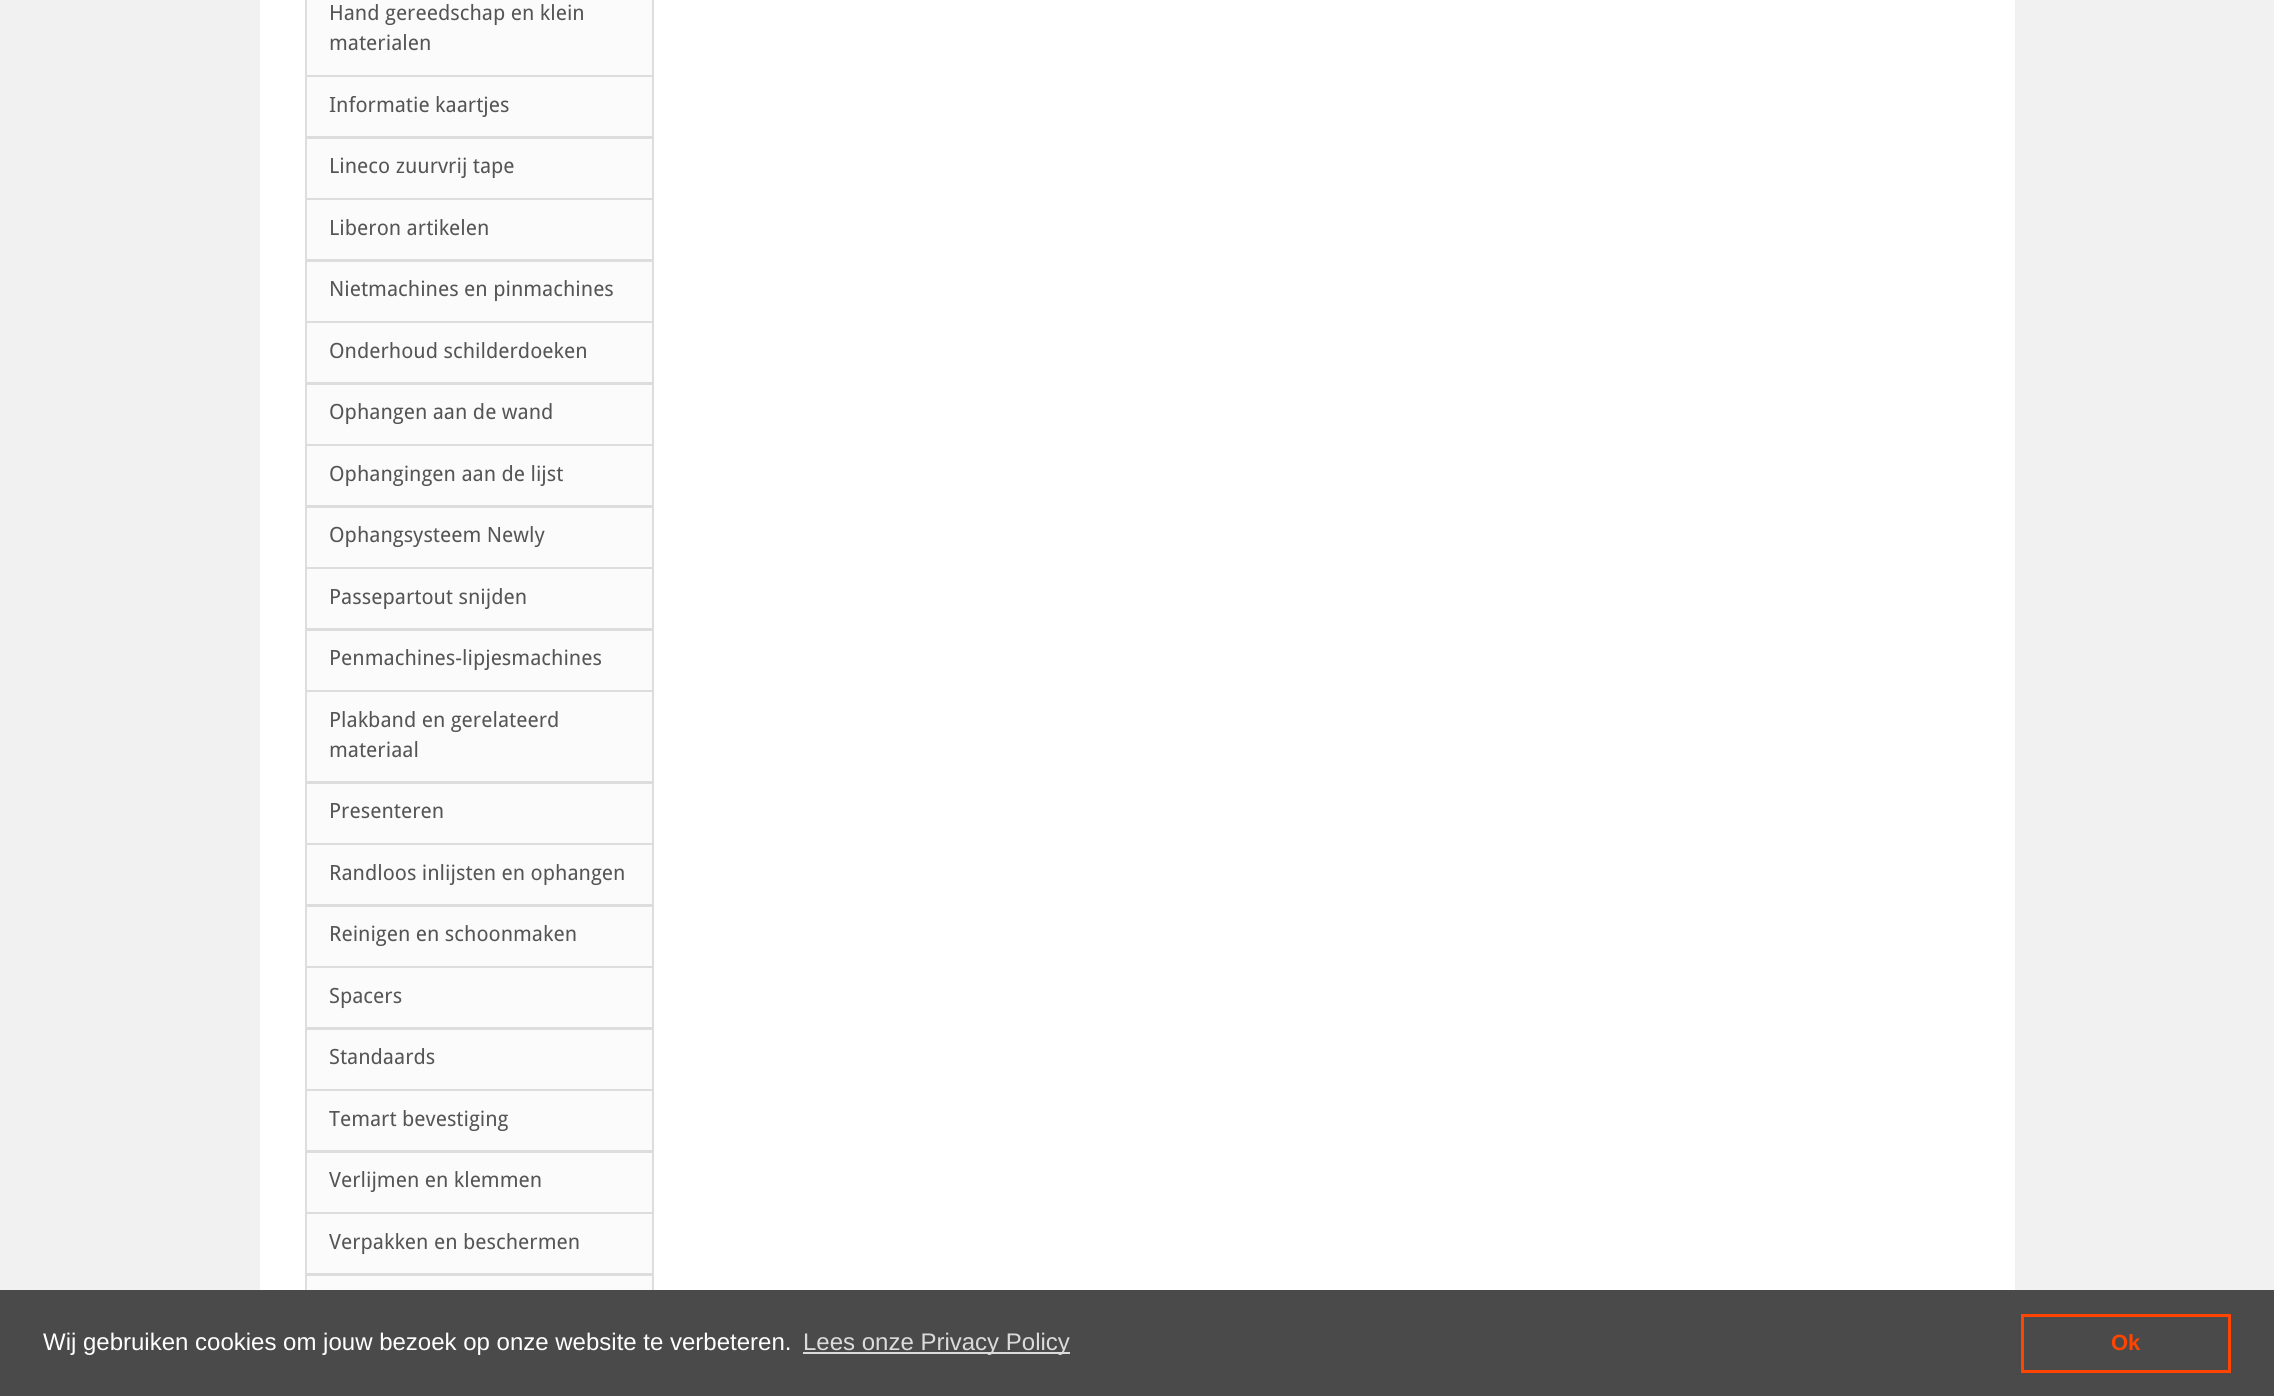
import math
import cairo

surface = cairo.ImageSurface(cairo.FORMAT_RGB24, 2274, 1396)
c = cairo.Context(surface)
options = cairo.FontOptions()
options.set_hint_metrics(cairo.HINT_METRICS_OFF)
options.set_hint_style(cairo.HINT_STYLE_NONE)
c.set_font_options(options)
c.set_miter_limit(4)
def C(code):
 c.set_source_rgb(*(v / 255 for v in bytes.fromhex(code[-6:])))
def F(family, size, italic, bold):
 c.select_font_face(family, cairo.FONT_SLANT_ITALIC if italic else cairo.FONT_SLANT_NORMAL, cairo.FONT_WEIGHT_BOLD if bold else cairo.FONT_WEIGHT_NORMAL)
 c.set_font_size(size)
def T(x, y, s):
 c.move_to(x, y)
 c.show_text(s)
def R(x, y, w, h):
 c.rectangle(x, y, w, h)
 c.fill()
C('f1f1f1')
c.paint()
C('ffffff')
R(260,0,1755,1290)
C('fbfbfb')
c.rectangle(306,-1,347,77)
c.fill_preserve()
C('dddddd')
c.stroke()
F('Droid Sans',21,0,0)
C('555555')
T(329,20,'Hand gereedschap en klein')
T(329,50,'materialen')
C('fbfbfb')
c.rectangle(306,76,347,61)
c.fill_preserve()
C('dddddd')
c.stroke()
C('555555')
T(329,112,'Informatie kaartjes')
C('fbfbfb')
c.rectangle(306,138,347,61)
c.fill_preserve()
C('dddddd')
c.stroke()
C('555555')
T(329,173,'Lineco zuurvrij tape')
C('fbfbfb')
c.rectangle(306,199,347,61)
c.fill_preserve()
C('dddddd')
c.stroke()
C('555555')
T(329,235,'Liberon artikelen')
C('fbfbfb')
c.rectangle(306,261,347,61)
c.fill_preserve()
C('dddddd')
c.stroke()
C('555555')
T(329,296,'Nietmachines en pinmachines')
C('fbfbfb')
c.rectangle(306,322,347,61)
c.fill_preserve()
C('dddddd')
c.stroke()
C('555555')
T(329,358,'Onderhoud schilderdoeken')
C('fbfbfb')
c.rectangle(306,384,347,61)
c.fill_preserve()
C('dddddd')
c.stroke()
C('555555')
T(329,419,'Ophangen aan de wand')
C('fbfbfb')
c.rectangle(306,445,347,61)
c.fill_preserve()
C('dddddd')
c.stroke()
C('555555')
T(329,481,'Ophangingen aan de lijst')
C('fbfbfb')
c.rectangle(306,507,347,61)
c.fill_preserve()
C('dddddd')
c.stroke()
C('555555')
T(329,542,'Ophangsysteem Newly')
C('fbfbfb')
c.rectangle(306,568,347,61)
c.fill_preserve()
C('dddddd')
c.stroke()
C('555555')
T(329,604,'Passepartout snijden')
C('fbfbfb')
c.rectangle(306,630,347,61)
c.fill_preserve()
C('dddddd')
c.stroke()
C('555555')
T(329,665,'Penmachines-lipjesmachines')
C('fbfbfb')
c.rectangle(306,691,347,91)
c.fill_preserve()
C('dddddd')
c.stroke()
C('555555')
T(329,727,'Plakband en gerelateerd')
T(329,757,'materiaal')
C('fbfbfb')
c.rectangle(306,783,347,61)
c.fill_preserve()
C('dddddd')
c.stroke()
C('555555')
T(329,818,'Presenteren')
C('fbfbfb')
c.rectangle(306,844,347,61)
c.fill_preserve()
C('dddddd')
c.stroke()
C('555555')
T(329,880,'Randloos inlijsten en ophangen')
C('fbfbfb')
c.rectangle(306,906,347,61)
c.fill_preserve()
C('dddddd')
c.stroke()
C('555555')
T(329,941,'Reinigen en schoonmaken')
C('fbfbfb')
c.rectangle(306,967,347,61)
c.fill_preserve()
C('dddddd')
c.stroke()
C('555555')
T(329,1003,'Spacers')
C('fbfbfb')
c.rectangle(306,1029,347,61)
c.fill_preserve()
C('dddddd')
c.stroke()
C('555555')
T(329,1064,'Standaards')
C('fbfbfb')
c.rectangle(306,1090,347,61)
c.fill_preserve()
C('dddddd')
c.stroke()
C('555555')
T(329,1126,'Temart bevestiging')
C('fbfbfb')
c.rectangle(306,1152,347,61)
c.fill_preserve()
C('dddddd')
c.stroke()
C('555555')
T(329,1187,'Verlijmen en klemmen')
C('fbfbfb')
c.rectangle(306,1213,347,61)
c.fill_preserve()
C('dddddd')
c.stroke()
C('555555')
T(329,1249,'Verpakken en beschermen')
C('fbfbfb')
R(307,1276,345,14)
c.rectangle(306,1275,347,61)
C('dddddd')
c.stroke()
C('4a4a4a')
R(0,1290,2274,106)
F('Liberation Sans',24,0,0)
C('ffffff')
T(43,1350,'Wij gebruiken cookies om jouw bezoek op onze website te verbeteren.')
C('dbdbdb')
R(803,1352,267,2)
T(803,1350,'Lees onze Privacy Policy')
c.rectangle(2022.5,1315.5,207,56)
C('ff4500')
c.set_line_width(3)
c.stroke()
F('Liberation Sans',22,0,1)
T(2111,1350,'Ok')
surface.write_to_png('o.png')
